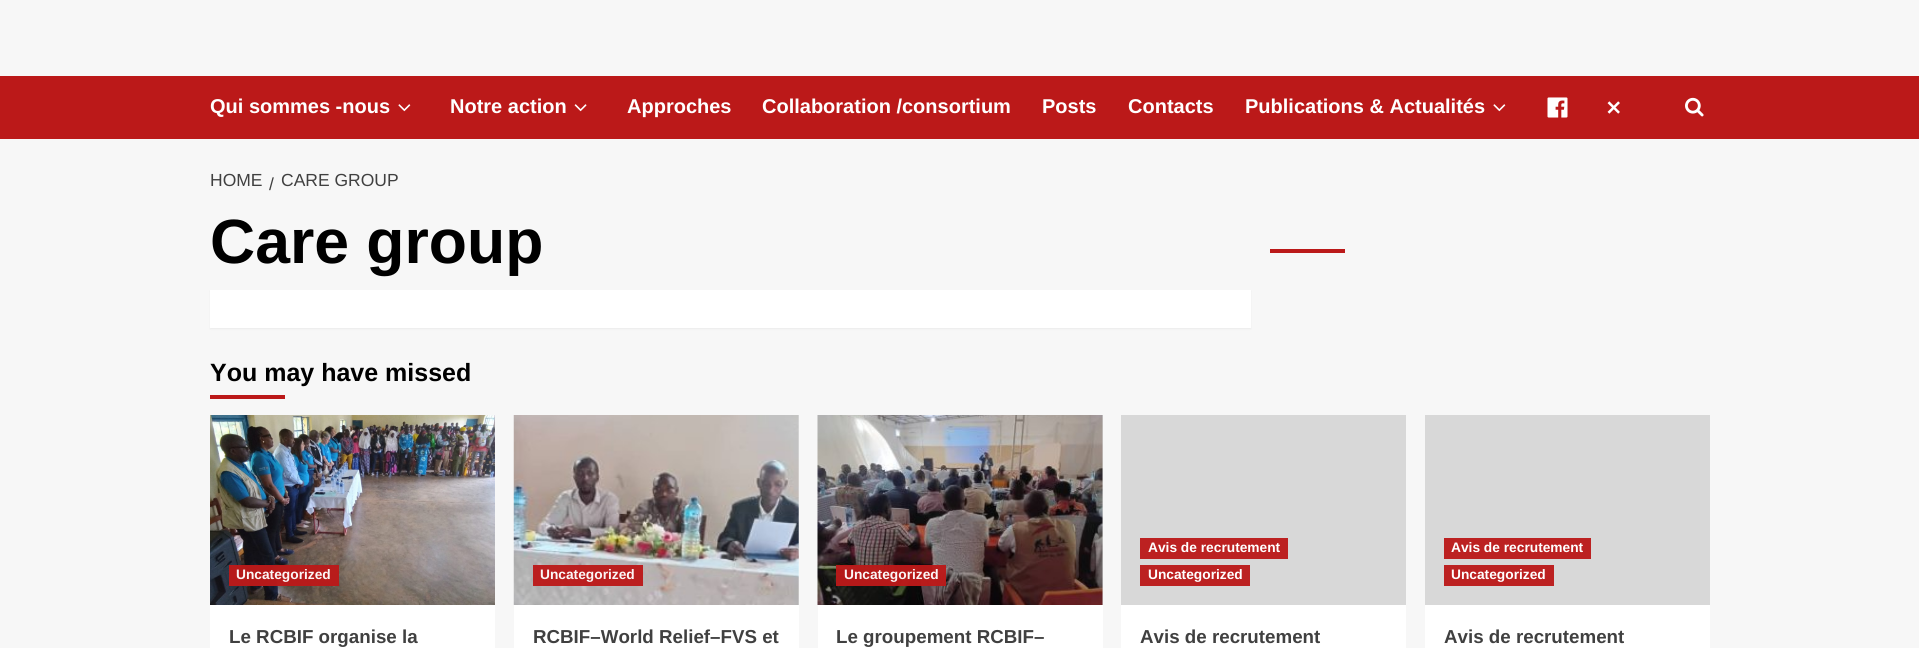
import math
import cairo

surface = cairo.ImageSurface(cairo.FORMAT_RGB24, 1919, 648)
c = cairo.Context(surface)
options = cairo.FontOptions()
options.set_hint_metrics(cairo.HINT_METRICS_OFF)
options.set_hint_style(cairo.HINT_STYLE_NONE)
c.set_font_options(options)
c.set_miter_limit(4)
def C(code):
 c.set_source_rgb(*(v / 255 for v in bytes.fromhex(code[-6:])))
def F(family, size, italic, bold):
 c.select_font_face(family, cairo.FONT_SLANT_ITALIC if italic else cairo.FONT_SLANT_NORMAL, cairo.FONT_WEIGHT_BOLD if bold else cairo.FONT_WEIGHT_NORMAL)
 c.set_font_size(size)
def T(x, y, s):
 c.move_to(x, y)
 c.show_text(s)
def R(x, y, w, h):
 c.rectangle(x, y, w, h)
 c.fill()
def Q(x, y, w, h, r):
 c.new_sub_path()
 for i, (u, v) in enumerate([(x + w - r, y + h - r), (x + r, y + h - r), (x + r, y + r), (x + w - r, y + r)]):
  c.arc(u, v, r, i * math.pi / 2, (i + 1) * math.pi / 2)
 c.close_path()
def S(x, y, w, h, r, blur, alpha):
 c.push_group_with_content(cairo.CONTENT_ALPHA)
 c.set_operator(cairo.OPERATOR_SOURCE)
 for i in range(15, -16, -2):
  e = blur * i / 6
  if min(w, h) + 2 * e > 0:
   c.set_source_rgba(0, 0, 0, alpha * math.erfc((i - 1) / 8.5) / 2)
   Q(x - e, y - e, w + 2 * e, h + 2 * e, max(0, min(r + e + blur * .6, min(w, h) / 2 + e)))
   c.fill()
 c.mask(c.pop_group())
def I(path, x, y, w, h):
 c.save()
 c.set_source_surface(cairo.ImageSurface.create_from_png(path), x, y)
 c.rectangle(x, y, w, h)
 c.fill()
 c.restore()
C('f7f7f7')
c.paint()
C('bb1919')
R(0,76,1919,63)
F('Liberation Sans',20,0,1)
C('ffffff')
T(210,113,'Qui sommes -nous')
I('1.png',398,104,13,8)
T(450,113,'Notre action')
I('2.png',574,104,13,8)
T(627,113,'Approches')
T(762,113,'Collaboration /consortium')
T(1042,113,'Posts')
T(1128,113,'Contacts')
T(1245,113,'Publications & Actualités')
I('1.png',1493,104,13,8)
I('3.png',1547,97,21,21)
I('4.png',1607,101,13,13)
I('5.png',1685,97,19,20)
F('Liberation Sans',17.5,0,0)
C('404040')
T(210,186,'HOME')
T(269,190,'/')
T(281,186,'CARE GROUP')
F('Liberation Sans',62.5,0,1)
C('000000')
T(210,263,'Care group')
C('000000')
S(210,291,1041,38,0,1,.05)
C('ffffff')
R(210,290,1041,38)
C('bb1919')
R(1270,249,75,4)
F('Liberation Sans',25,0,1)
C('000000')
T(210,381,'You may have missed')
C('bb1919')
R(210,395,75,4)
C('ffffff')
R(210,605,285,43)
I('6.png',210,415,285,190)
c.set_source_rgba(0.733,0.098,0.098,0.96)
R(229,565,110,21)
F('Liberation Sans',13.75,0,1)
C('fcf6f6')
T(236,579,'Uncategorized')
F('Liberation Sans',18.75,0,1)
C('404040')
T(229,643,'Le RCBIF organise la')
C('ffffff')
R(514,415,285,233)
I('7.png',513,415,286,190)
c.set_source_rgba(0.733,0.098,0.098,0.96)
R(533,565,110,21)
F('Liberation Sans',13.75,0,1)
C('fcf6f6')
T(540,579,'Uncategorized')
F('Liberation Sans',18.75,0,1)
C('404040')
T(533,643,'RCBIF–World Relief–FVS et')
C('ffffff')
R(818,605,285,43)
C('d8d8d8')
R(1102,415,1,190)
I('8.png',817,415,286,190)
c.set_source_rgba(0.733,0.098,0.098,0.96)
R(836,565,110,21)
F('Liberation Sans',13.75,0,1)
C('fcf6f6')
T(844,579,'Uncategorized')
F('Liberation Sans',18.75,0,1)
C('404040')
T(836,643,'Le groupement RCBIF–')
C('ffffff')
R(1121,605,285,43)
C('d8d8d8')
R(1121,415,285,190)
C('bc2121')
R(1140,538,148,21)
F('Liberation Sans',13.75,0,1)
C('ffffff')
T(1148,552,'Avis de recrutement')
C('bc2121')
R(1140,565,110,21)
C('ffffff')
T(1148,579,'Uncategorized')
F('Liberation Sans',18.75,0,1)
C('404040')
T(1140,643,'Avis de recrutement')
C('ffffff')
R(1425,605,285,43)
C('d8d8d8')
R(1425,415,285,190)
C('bc2121')
R(1444,538,147,21)
F('Liberation Sans',13.75,0,1)
C('ffffff')
T(1451,552,'Avis de recrutement')
C('bc2121')
R(1444,565,110,21)
C('ffffff')
T(1451,579,'Uncategorized')
F('Liberation Sans',18.75,0,1)
C('404040')
T(1444,643,'Avis de recrutement')
surface.write_to_png('o.png')
